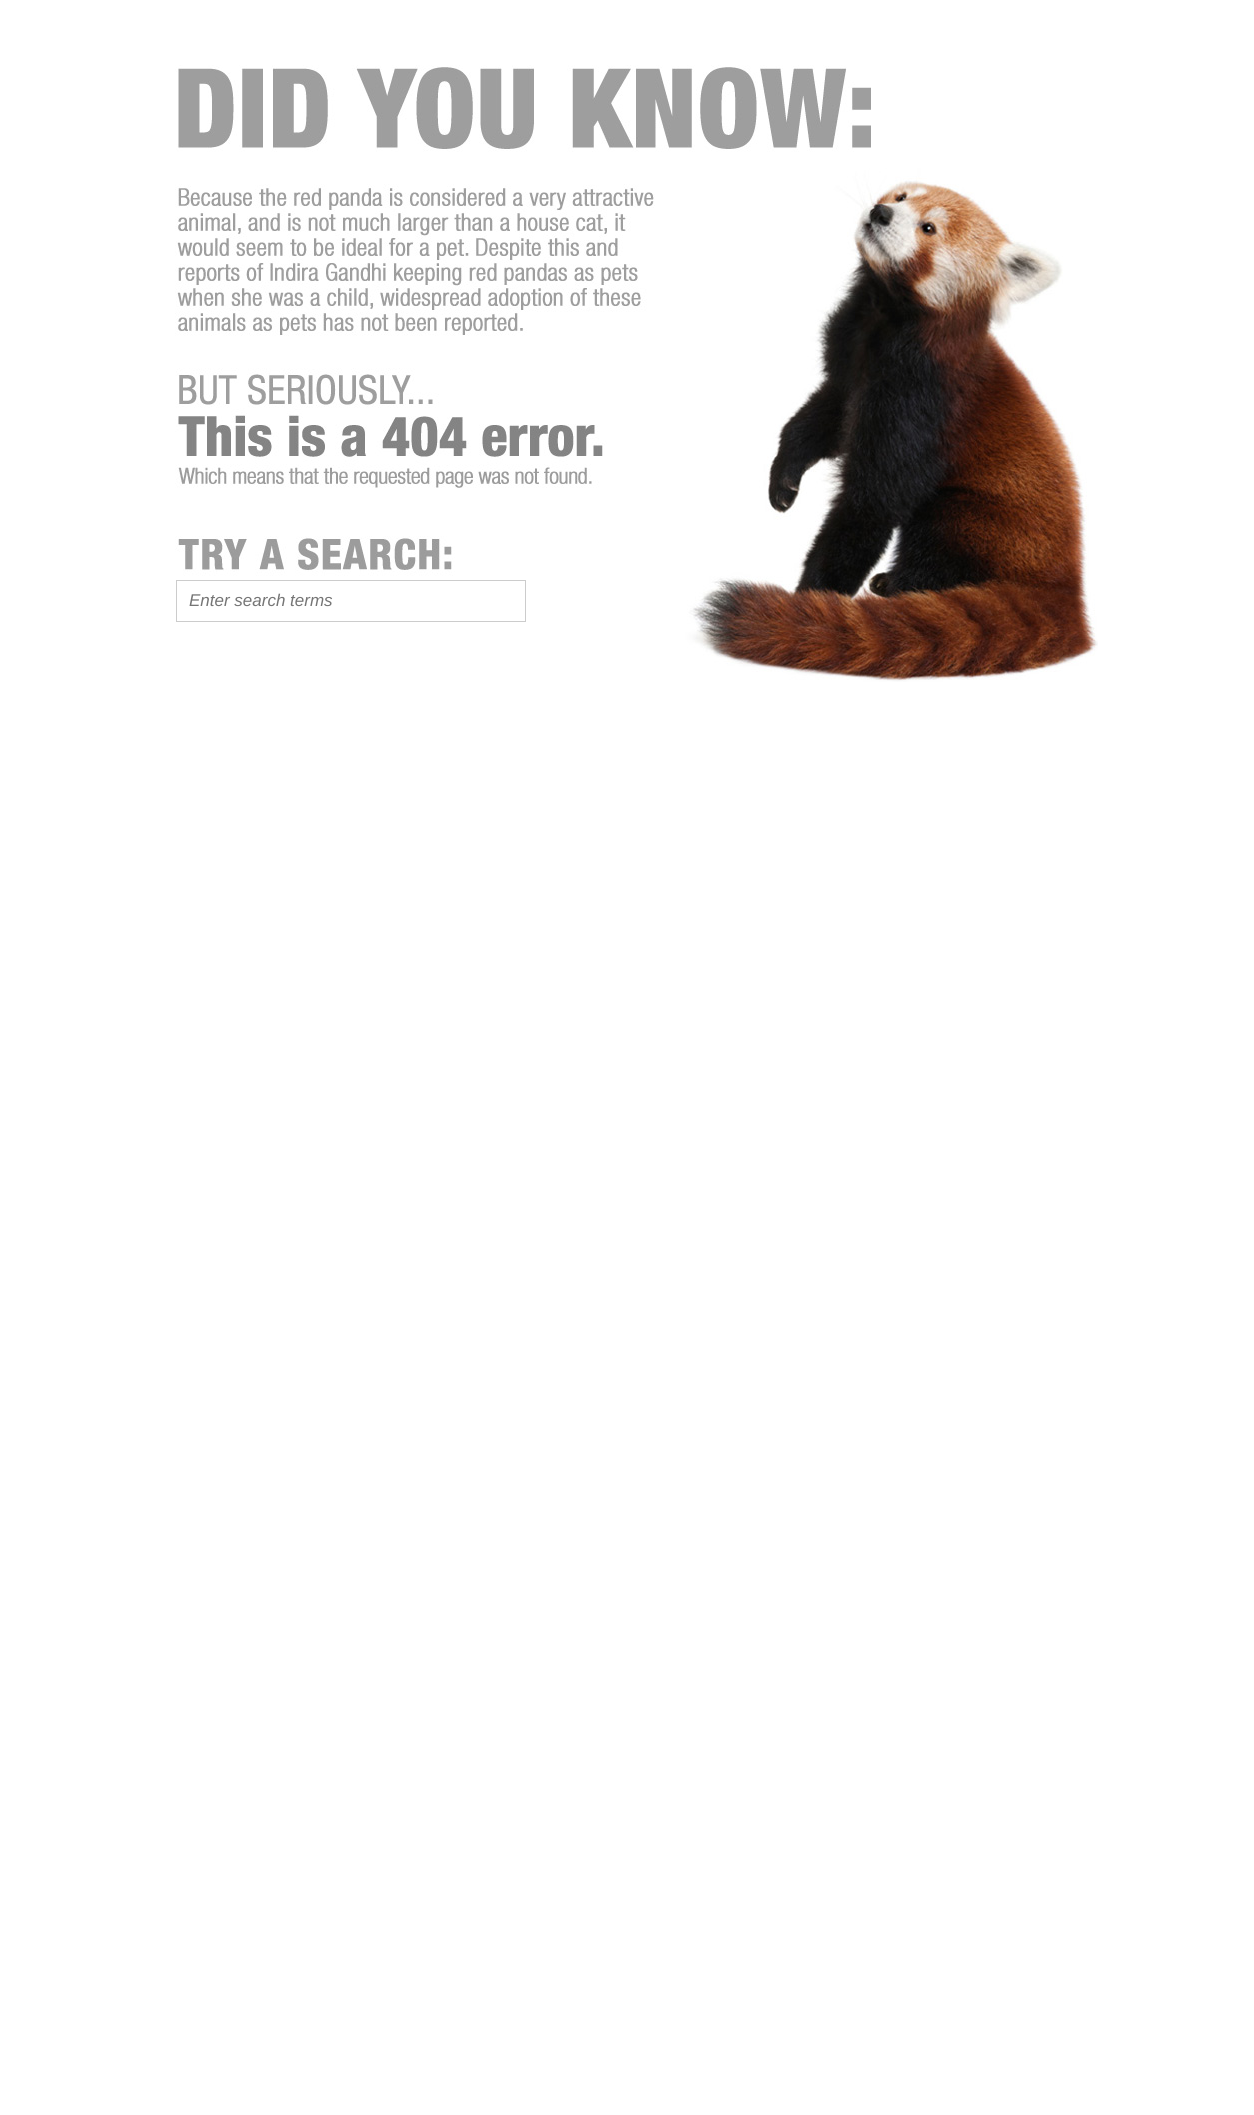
import math
import cairo

surface = cairo.ImageSurface(cairo.FORMAT_RGB24, 1254, 2115)
c = cairo.Context(surface)
options = cairo.FontOptions()
options.set_hint_metrics(cairo.HINT_METRICS_OFF)
options.set_hint_style(cairo.HINT_STYLE_NONE)
c.set_font_options(options)
c.set_miter_limit(4)
def C(code):
 c.set_source_rgb(*(v / 255 for v in bytes.fromhex(code[-6:])))
def F(family, size, italic, bold):
 c.select_font_face(family, cairo.FONT_SLANT_ITALIC if italic else cairo.FONT_SLANT_NORMAL, cairo.FONT_WEIGHT_BOLD if bold else cairo.FONT_WEIGHT_NORMAL)
 c.set_font_size(size)
def T(x, y, s):
 c.move_to(x, y)
 c.show_text(s)
def I(path, x, y, w, h):
 c.save()
 c.set_source_surface(cairo.ImageSurface.create_from_png(path), x, y)
 c.rectangle(x, y, w, h)
 c.fill()
 c.restore()
C('ffffff')
c.paint()
I('1.png',175,65,923,617)
c.rectangle(176.5,580.5,349,41)
C('cccccc')
c.set_line_width(1)
c.stroke()
F('Liberation Sans',17,1,0)
C('757575')
T(189,606,'Enter search terms')
surface.write_to_png('o.png')
